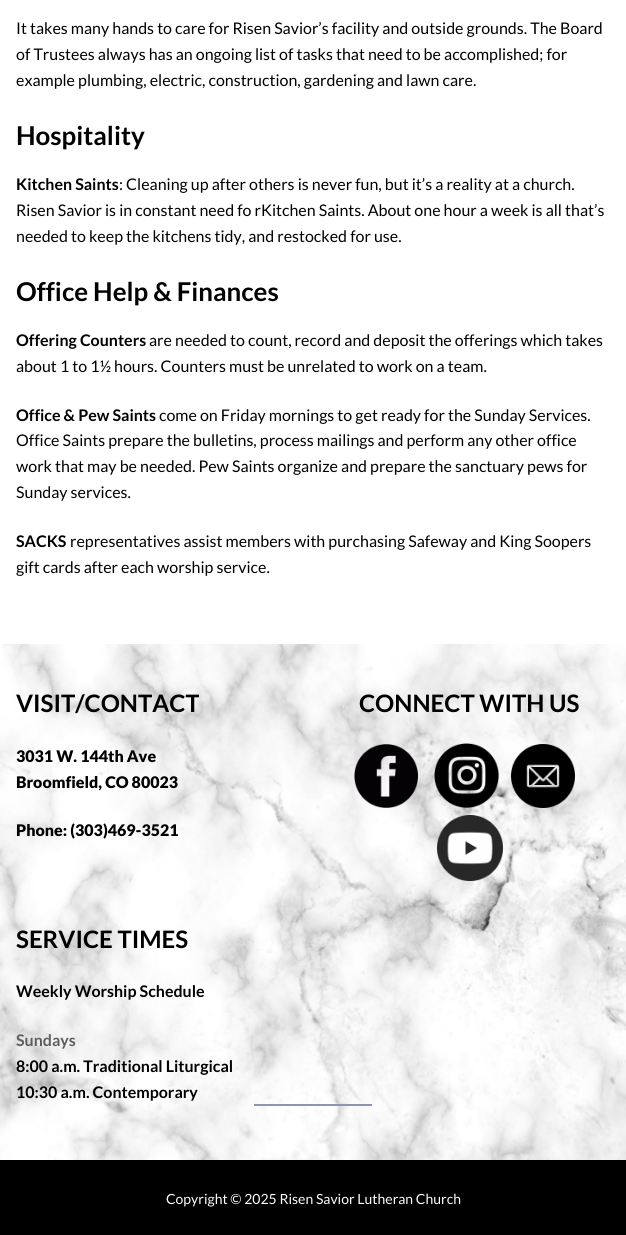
import math
import cairo

surface = cairo.ImageSurface(cairo.FORMAT_RGB24, 626, 1235)
c = cairo.Context(surface)
options = cairo.FontOptions()
options.set_hint_metrics(cairo.HINT_METRICS_OFF)
options.set_hint_style(cairo.HINT_STYLE_NONE)
c.set_font_options(options)
c.set_miter_limit(4)
def C(code):
 c.set_source_rgb(*(v / 255 for v in bytes.fromhex(code[-6:])))
def F(family, size, italic, bold):
 c.select_font_face(family, cairo.FONT_SLANT_ITALIC if italic else cairo.FONT_SLANT_NORMAL, cairo.FONT_WEIGHT_BOLD if bold else cairo.FONT_WEIGHT_NORMAL)
 c.set_font_size(size)
def T(x, y, s):
 c.move_to(x, y)
 c.show_text(s)
def R(x, y, w, h):
 c.rectangle(x, y, w, h)
 c.fill()
def I(path, x, y, w, h):
 c.save()
 c.set_source_surface(cairo.ImageSurface.create_from_png(path), x, y)
 c.rectangle(x, y, w, h)
 c.fill()
 c.restore()
C('ffffff')
c.paint()
F('Lato',16,0,0)
C('000000')
T(16,34,'It takes many hands to care for Risen Savior’s facility and outside grounds. The Board')
T(16,60,'of Trustees always has an ongoing list of tasks that need to be accomplished; for')
T(16,86,'example plumbing, electric, construction, gardening and lawn care.')
F('Lato',25.9,0,1)
T(16,145,'Hospitality')
F('Lato',16,0,1)
T(16,190,'Kitchen Saints')
F('Lato',16,0,0)
T(119,190,': Cleaning up after others is never fun, but it’s a reality at a church.')
T(16,216,'Risen Savior is in constant need fo rKitchen Saints. About one hour a week is all that’s')
T(16,242,'needed to keep the kitchens tidy, and restocked for use.')
F('Lato',25.9,0,1)
T(16,301,'Office Help & Finances')
F('Lato',16,0,1)
T(16,346,'Offering Counters')
F('Lato',16,0,0)
T(149,346,'are needed to count, record and deposit the offerings which takes')
T(16,372,'about 1 to 1½ hours. Counters must be unrelated to work on a team.')
F('Lato',16,0,1)
T(16,421,'Office & Pew Saints')
F('Lato',16,0,0)
T(159,421,'come on Friday mornings to get ready for the Sunday Services.')
T(16,446,'Office Saints prepare the bulletins, process mailings and perform any other office')
T(16,472,'work that may be needed. Pew Saints organize and prepare the sanctuary pews for')
T(16,498,'Sunday services.')
F('Lato',16,0,1)
T(16,547,'SACKS')
F('Lato',16,0,0)
T(70,547,'representatives assist members with purchasing Safeway and King Soopers')
T(16,573,'gift cards after each worship service.')
I('1.png',0,644,626,516)
F('Lato',24,0,1)
T(16,712,'VISIT/CONTACT')
F('Lato Black',16,0,0)
T(16,762,'3031 W. 144th Ave')
T(16,788,'Broomfield, CO 80023')
T(16,836,'Phone: (303)469-3521')
F('Lato',24,0,1)
T(359,712,'CONNECT WITH US')
I('2.png',354,744,64,64)
I('3.png',434,743,65,65)
I('4.png',511,744,64,64)
I('5.png',437,815,66,66)
T(16,948,'SERVICE TIMES')
F('Lato',16,0,1)
T(16,997,'Weekly Worship Schedule')
C('5e5e5e')
T(16,1046,'Sundays')
C('000000')
T(16,1072,'8:00 a.m. Traditional Liturgical')
T(16,1098,'10:30 a.m. Contemporary')
C('8f93b4')
R(254,1104,118,2)
C('000000')
R(0,1160,626,75)
F('Lato',14,0,0)
C('fcfcfc')
T(166,1204,'Copyright © 2025 Risen Savior Lutheran Church')
surface.write_to_png('o.png')
